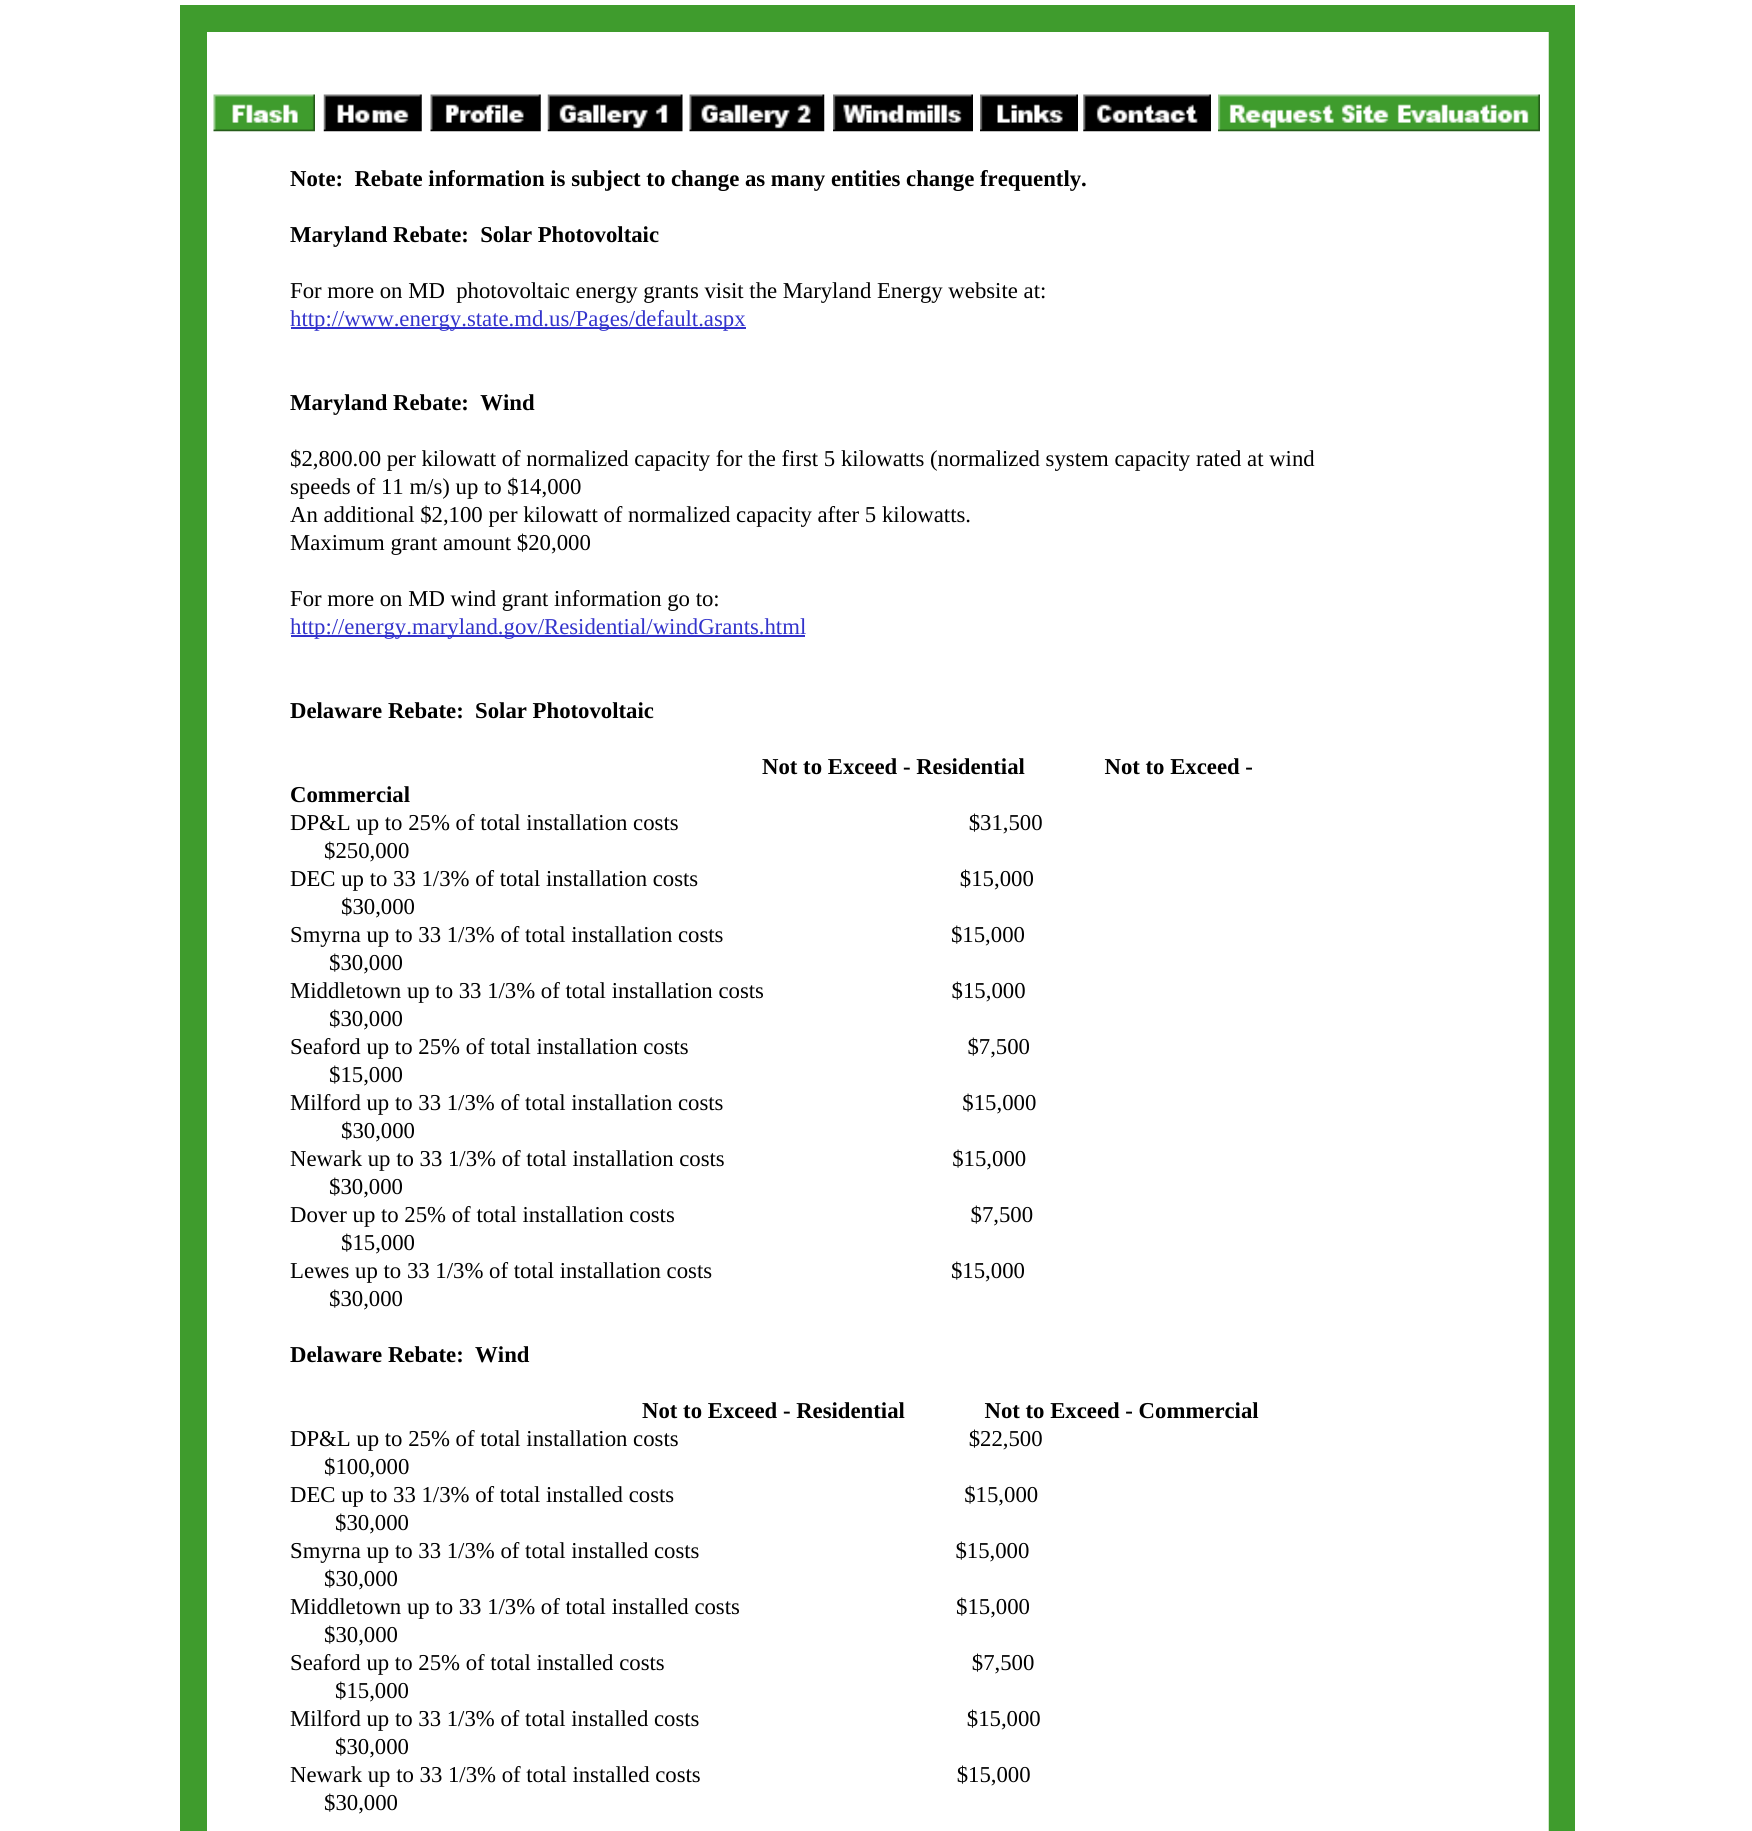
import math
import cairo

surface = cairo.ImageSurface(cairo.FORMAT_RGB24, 1752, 1831)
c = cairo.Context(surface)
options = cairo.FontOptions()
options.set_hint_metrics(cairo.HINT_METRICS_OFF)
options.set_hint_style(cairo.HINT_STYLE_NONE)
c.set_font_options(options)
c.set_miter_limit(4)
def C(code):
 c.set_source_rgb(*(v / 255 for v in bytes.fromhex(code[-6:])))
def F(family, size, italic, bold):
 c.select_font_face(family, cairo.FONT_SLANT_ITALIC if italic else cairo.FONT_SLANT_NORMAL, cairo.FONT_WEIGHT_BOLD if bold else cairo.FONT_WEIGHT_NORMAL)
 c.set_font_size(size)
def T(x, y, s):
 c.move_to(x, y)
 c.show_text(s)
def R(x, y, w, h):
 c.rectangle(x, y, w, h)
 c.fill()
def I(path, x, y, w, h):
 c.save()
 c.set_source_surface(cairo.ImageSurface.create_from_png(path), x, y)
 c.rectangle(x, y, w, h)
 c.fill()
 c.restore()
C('ffffff')
c.paint()
C('3f9c2d')
R(180,5,1395,27)
R(180,32,27,1799)
R(1549,32,26,1799)
C('cee6ca')
R(1548,32,1,1799)
I('1.png',213,94,102,38)
I('2.png',323,94,99,38)
I('3.png',430,94,111,38)
I('4.png',547,94,136,38)
I('5.png',689,94,136,38)
I('6.png',833,94,140,38)
I('7.png',980,94,98,38)
I('8.png',1083,94,128,38)
I('9.png',1218,94,322,38)
F('Liberation Serif',22.75,0,1)
C('000000')
T(290,186,'Note:  Rebate information is subject to change as many entities change frequently.')
T(290,242,'Maryland Rebate:  Solar Photovoltaic')
F('Liberation Serif',22.75,0,0)
T(290,298,'For more on MD  photovoltaic energy grants visit the Maryland Energy website at:')
C('3333cc')
R(291,327,455,2)
T(290,326,'http://www.energy.state.md.us/Pages/default.aspx')
F('Liberation Serif',22.75,0,1)
C('000000')
T(290,410,'Maryland Rebate:  Wind')
F('Liberation Serif',22.75,0,0)
T(290,466,'$2,800.00 per kilowatt of normalized capacity for the first 5 kilowatts (normalized system capacity rated at wind')
T(290,494,'speeds of 11 m/s) up to $14,000')
T(290,522,'An additional $2,100 per kilowatt of normalized capacity after 5 kilowatts.')
T(290,550,'Maximum grant amount $20,000')
T(290,606,'For more on MD wind grant information go to:')
C('3333cc')
R(291,635,514,2)
T(290,634,'http://energy.maryland.gov/Residential/windGrants.html')
F('Liberation Serif',22.75,0,1)
C('000000')
T(290,718,'Delaware Rebate:  Solar Photovoltaic')
T(762,774,'Not to Exceed - Residential              Not to Exceed -')
T(290,802,'Commercial')
F('Liberation Serif',22.75,0,0)
T(290,830,'DP&L up to 25% of total installation costs                                                   $31,500')
T(324,858,'$250,000')
T(290,886,'DEC up to 33 1/3% of total installation costs                                              $15,000')
T(341,914,'$30,000')
T(290,942,'Smyrna up to 33 1/3% of total installation costs                                        $15,000')
T(329,970,'$30,000')
T(290,998,'Middletown up to 33 1/3% of total installation costs                                 $15,000')
T(329,1026,'$30,000')
T(290,1054,'Seaford up to 25% of total installation costs                                                 $7,500')
T(329,1082,'$15,000')
T(290,1110,'Milford up to 33 1/3% of total installation costs                                          $15,000')
T(341,1138,'$30,000')
T(290,1166,'Newark up to 33 1/3% of total installation costs                                        $15,000')
T(329,1194,'$30,000')
T(290,1222,'Dover up to 25% of total installation costs                                                    $7,500')
T(341,1250,'$15,000')
T(290,1278,'Lewes up to 33 1/3% of total installation costs                                          $15,000')
T(329,1306,'$30,000')
F('Liberation Serif',22.75,0,1)
T(290,1362,'Delaware Rebate:  Wind')
T(642,1418,'Not to Exceed - Residential              Not to Exceed - Commercial')
F('Liberation Serif',22.75,0,0)
T(290,1446,'DP&L up to 25% of total installation costs                                                   $22,500')
T(324,1474,'$100,000')
T(290,1502,'DEC up to 33 1/3% of total installed costs                                                   $15,000')
T(335,1530,'$30,000')
T(290,1558,'Smyrna up to 33 1/3% of total installed costs                                             $15,000')
T(324,1586,'$30,000')
T(290,1614,'Middletown up to 33 1/3% of total installed costs                                      $15,000')
T(324,1642,'$30,000')
T(290,1670,'Seaford up to 25% of total installed costs                                                      $7,500')
T(335,1698,'$15,000')
T(290,1726,'Milford up to 33 1/3% of total installed costs                                               $15,000')
T(335,1754,'$30,000')
T(290,1782,'Newark up to 33 1/3% of total installed costs                                             $15,000')
T(324,1810,'$30,000')
surface.write_to_png('o.png')
